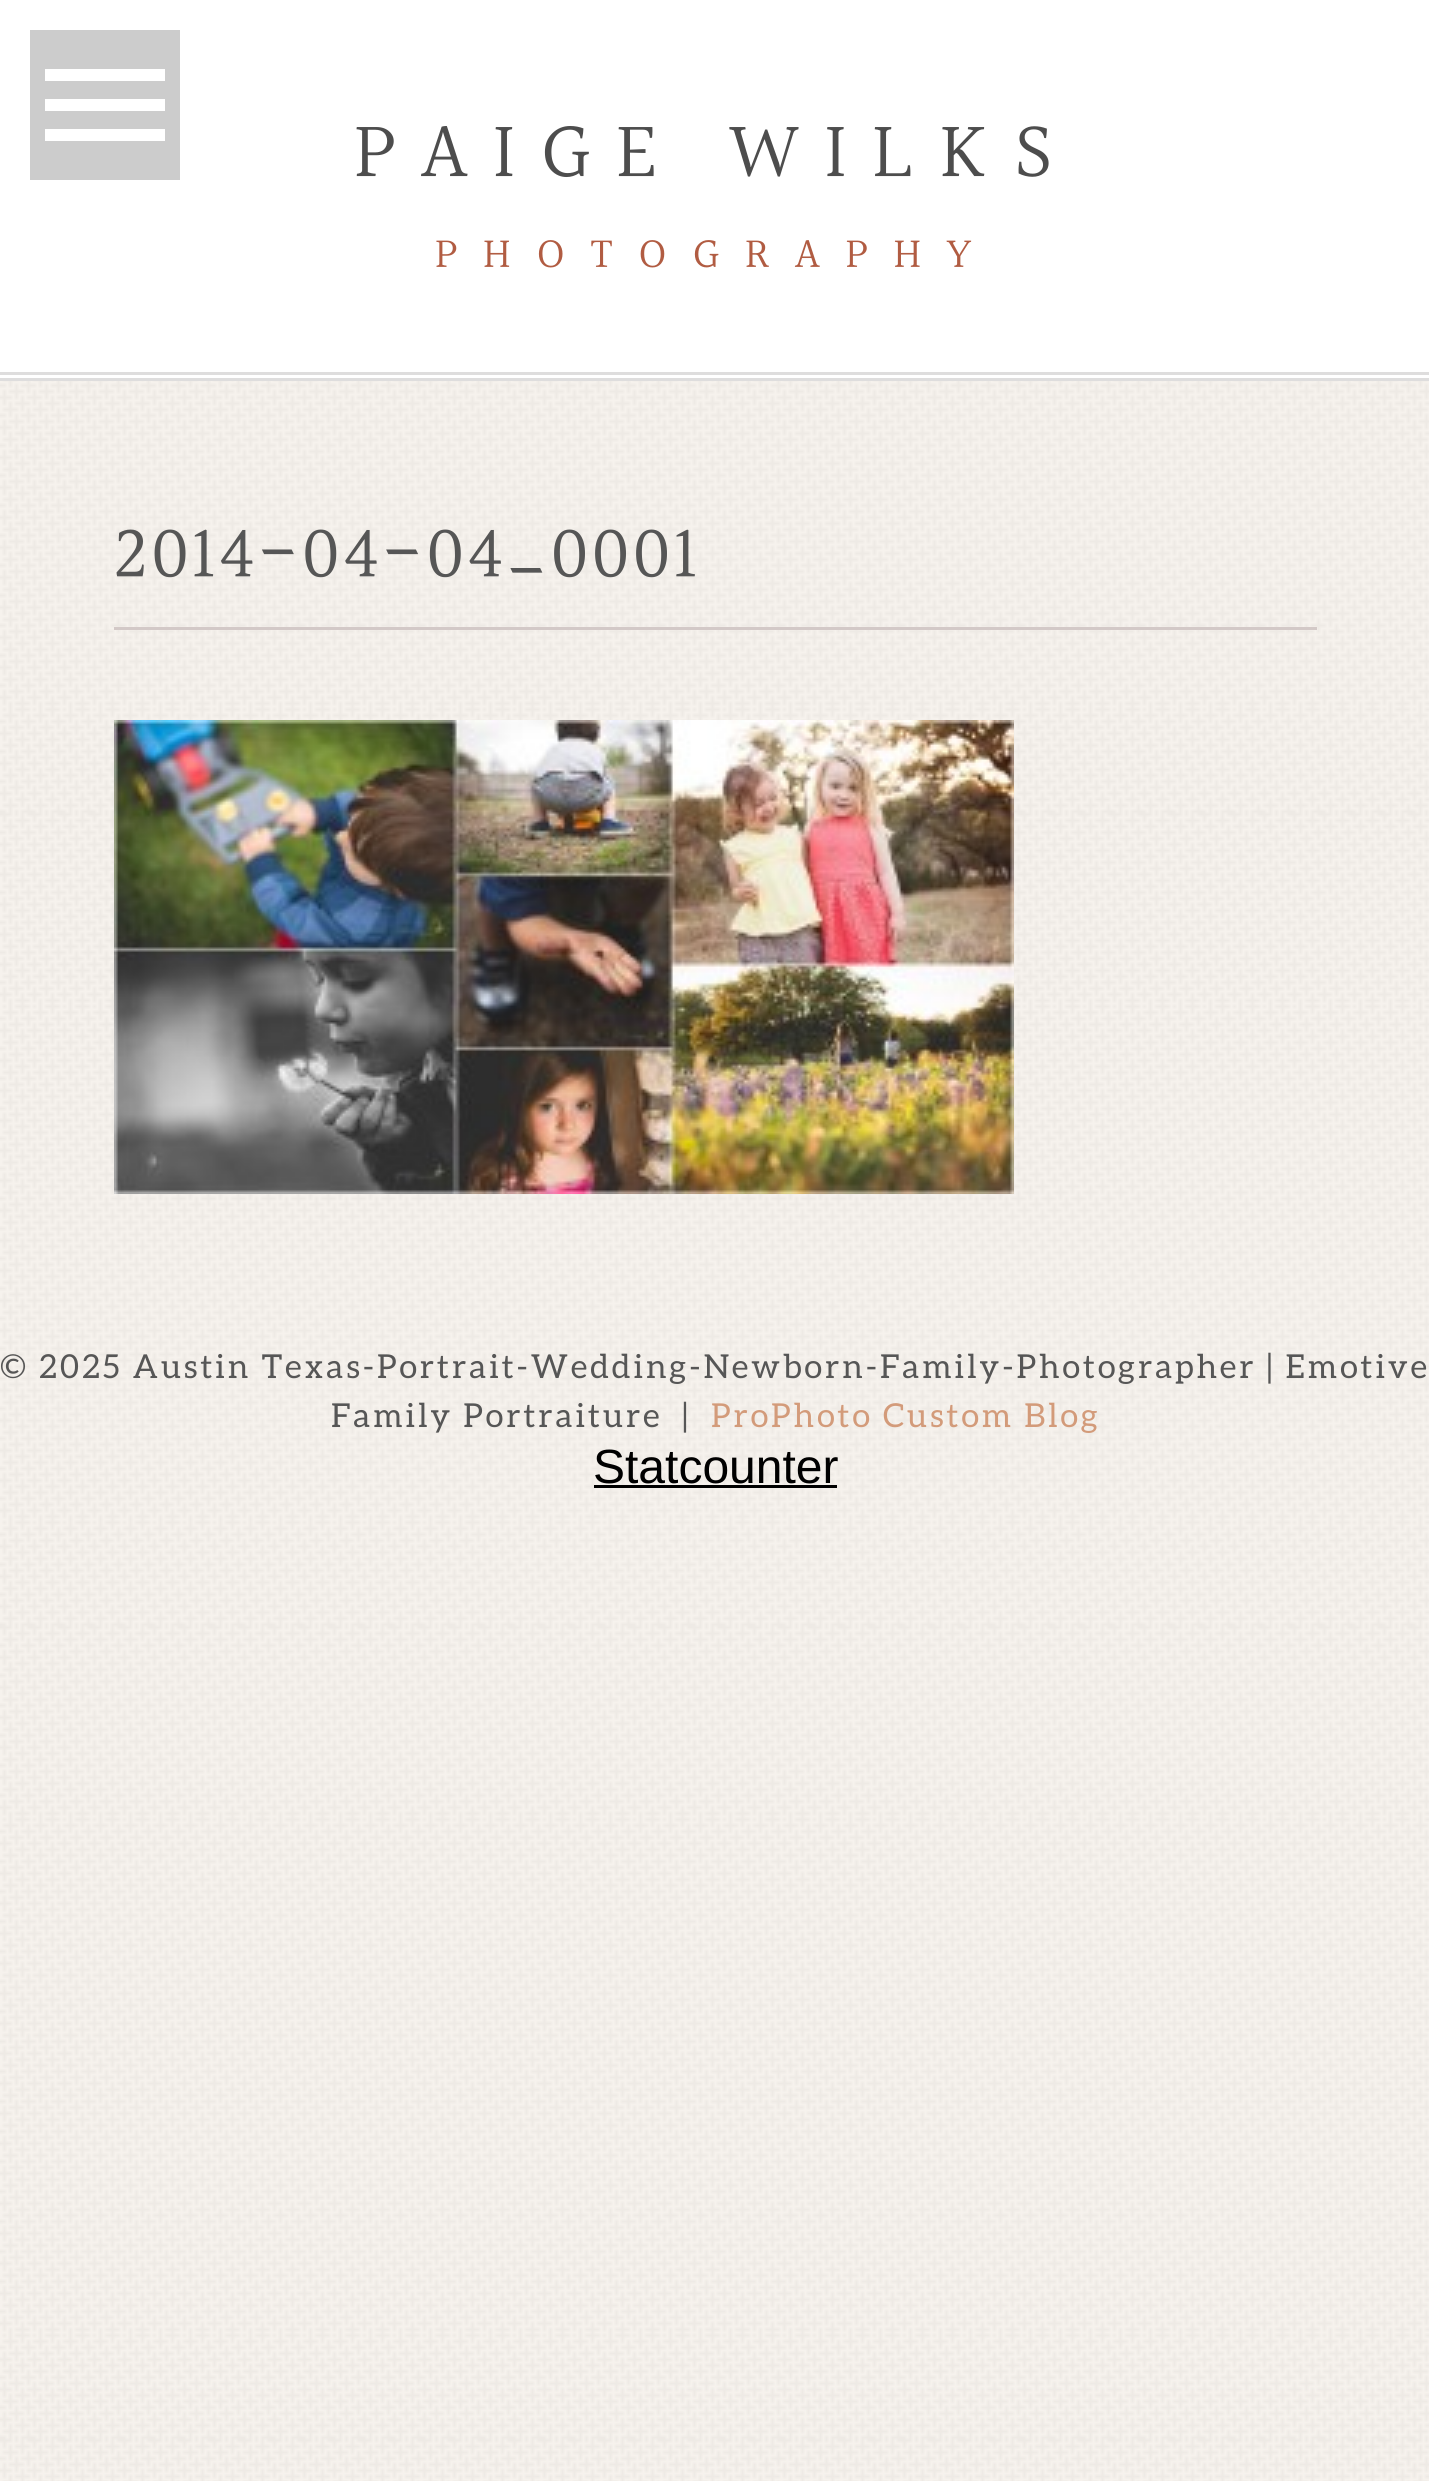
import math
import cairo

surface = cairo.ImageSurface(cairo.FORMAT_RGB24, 1429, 2481)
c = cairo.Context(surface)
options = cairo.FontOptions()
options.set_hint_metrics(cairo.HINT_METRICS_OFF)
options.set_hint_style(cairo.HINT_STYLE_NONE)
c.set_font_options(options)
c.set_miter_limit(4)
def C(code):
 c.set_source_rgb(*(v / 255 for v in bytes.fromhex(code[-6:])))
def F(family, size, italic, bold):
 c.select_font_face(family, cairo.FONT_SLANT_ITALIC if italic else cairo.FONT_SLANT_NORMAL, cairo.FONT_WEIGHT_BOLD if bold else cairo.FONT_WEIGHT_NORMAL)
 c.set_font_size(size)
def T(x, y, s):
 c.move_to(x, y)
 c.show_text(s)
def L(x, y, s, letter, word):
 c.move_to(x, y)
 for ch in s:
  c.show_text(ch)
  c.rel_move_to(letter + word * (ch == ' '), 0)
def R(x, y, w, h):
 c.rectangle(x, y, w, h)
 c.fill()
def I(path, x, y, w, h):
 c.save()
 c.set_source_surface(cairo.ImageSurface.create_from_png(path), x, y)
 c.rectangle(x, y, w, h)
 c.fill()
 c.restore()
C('ffffff')
c.paint()
C('cccccc')
R(30,30,150,150)
C('ffffff')
R(45,99,120,12)
R(45,69,120,12)
R(45,129,120,12)
I('1.png',0,381,1429,2100)
F('Halant',80.25,0,0)
C('4d4d4d')
L(354,180,'PAIGE WILKS',25.6,0)
F('Halant',43,0,0)
C('b15c42')
L(435,269,'PHOTOGRAPHY',25.75,0)
C('dedddd')
R(0,372,1429,3)
R(0,378,1429,3)
F('Halant',75,0,0)
C('565656')
L(114,580,'2014-04-04_0001',3,0)
C('d3c9c7')
R(114,627,1203,3)
I('2.png',114,720,900,474)
F('Aleo',33,0,0)
C('565656')
L(0,1378,'© 2025 Austin Texas-Portrait-Wedding-Newborn-Family-Photographer | Emotive',2.97,0)
L(331,1427,'Family Portraiture',2.97,0)
L(682,1427,'|',2.97,0)
C('d39b7a')
L(711,1427,'ProPhoto Custom Blog',2.97,0)
F('Liberation Sans',48,0,0)
C('000000')
T(593,1483,'Statcounter')
R(594,1485,243,3)
surface.write_to_png('o.png')
